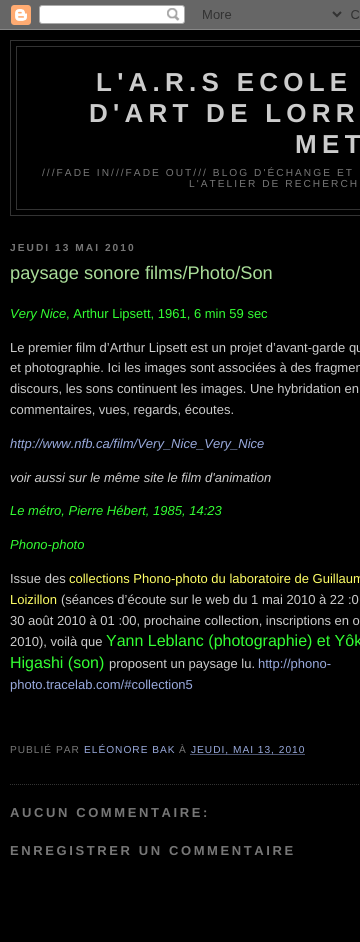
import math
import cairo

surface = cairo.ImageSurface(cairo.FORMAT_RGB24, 360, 942)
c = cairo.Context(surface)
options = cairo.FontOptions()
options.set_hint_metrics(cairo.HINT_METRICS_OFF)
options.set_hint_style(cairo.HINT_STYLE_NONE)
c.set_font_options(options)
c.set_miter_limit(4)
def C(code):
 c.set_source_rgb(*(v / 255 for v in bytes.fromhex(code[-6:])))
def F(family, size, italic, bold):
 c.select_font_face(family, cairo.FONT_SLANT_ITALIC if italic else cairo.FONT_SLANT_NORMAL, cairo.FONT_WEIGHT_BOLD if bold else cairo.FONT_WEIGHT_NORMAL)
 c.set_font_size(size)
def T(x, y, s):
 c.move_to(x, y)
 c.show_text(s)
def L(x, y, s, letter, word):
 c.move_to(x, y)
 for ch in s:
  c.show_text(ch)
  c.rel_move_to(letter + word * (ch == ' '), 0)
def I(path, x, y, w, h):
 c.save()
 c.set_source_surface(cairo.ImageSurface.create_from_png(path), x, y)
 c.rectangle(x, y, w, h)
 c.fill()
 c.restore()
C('000000')
c.paint()
I('1.png',0,0,360,30)
c.rectangle(10.5,40.5,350,175)
C('333333')
c.set_line_width(1)
c.stroke()
c.rectangle(16.5,46.5,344,163)
c.stroke()
F('Liberation Sans',26,0,1)
C('cccccc')
L(96,91,'L\'A.R.S ECOLE',5.25,0)
L(89,122,'D\'ART DE LORR',5.25,0)
L(295,153,'MET',5.25,0)
F('Liberation Sans',10.15,0,0)
C('777777')
L(42,176,'///FADE IN///FADE OUT/// BLOG D\'ÉCHANGE ET',2.05,0)
L(189,187,'L\'ATELIER DE RECHERCH',2.05,0)
F('Liberation Sans',10.15,0,1)
L(10,251,'JEUDI 13 MAI 2010',2.05,0)
c.new_path()
c.move_to(10,784.5)
c.line_to(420,784.5)
C('333333')
c.set_dash([1,1])
c.stroke()
F('Liberation Sans',18.25,0,0)
C('aadd99')
T(10,279,'paysage sonore films/Photo/Son')
F('Liberation Sans',13,1,0)
C('33ff33')
T(10,318,'Very Nice')
F('Liberation Sans',13,0,0)
T(66,318,', Arthur Lipsett, 1961, 6 min 59 sec')
C('cccccc')
T(10,352,'Le premier film d’Arthur Lipsett est un projet d’avant-garde qu')
T(10,372,'et photographie. Ici les images sont associées à des fragmen')
T(10,393,'discours, les sons continuent les images. Une hybridation en')
T(10,414,'commentaires, vues, regards, écoutes.')
F('Liberation Sans',13,1,0)
C('99aadd')
T(10,448,'http://www.nfb.ca/film/Very_Nice_Very_Nice')
C('cccccc')
T(10,482,'voir aussi sur le même site le film d\'animation')
C('33ff33')
T(10,515,'Le métro, Pierre Hébert, 1985, 14:23')
T(10,549,'Phono-photo')
F('Liberation Sans',13,0,0)
C('cccccc')
T(10,583,'Issue des')
C('ffff66')
T(69,583,'collections Phono-photo du laboratoire de Guillaum')
T(10,604,'Loizillon')
C('cccccc')
T(61,604,'(séances d’écoute sur le web du 1 mai 2010 à 22 :0')
T(10,625,'30 août 2010 à 01 :00, prochaine collection, inscriptions en o')
T(10,646,'2010), voilà que')
F('Liberation Sans',16,0,0)
C('33ff33')
T(106,646,'Yann Leblanc (photographie) et Yôk')
T(10,668,'Higashi (son)')
F('Liberation Sans',13,0,0)
C('cccccc')
T(109,668,'proposent un paysage lu.')
C('99aadd')
T(258,668,'http://phono-')
T(10,689,'photo.tracelab.com/#collection5')
F('Liberation Sans',10.15,0,0)
C('777777')
L(10,753,'PUBLIÉ PAR',1,0)
C('99aadd')
L(84,753,'ELÉONORE BAK',1,0)
C('777777')
L(179,753,'À',1,0)
c.new_path()
c.move_to(190.5,754.5)
c.line_to(305,754.5)
C('99aadd')
c.stroke()
L(191,753,'JEUDI, MAI 13, 2010',1,0)
F('Liberation Sans',13,0,1)
C('777777')
L(10,817,'AUCUN COMMENTAIRE:',2.6,0)
L(10,855,'ENREGISTRER UN COMMENTAIRE',2.6,0)
surface.write_to_png('o.png')
